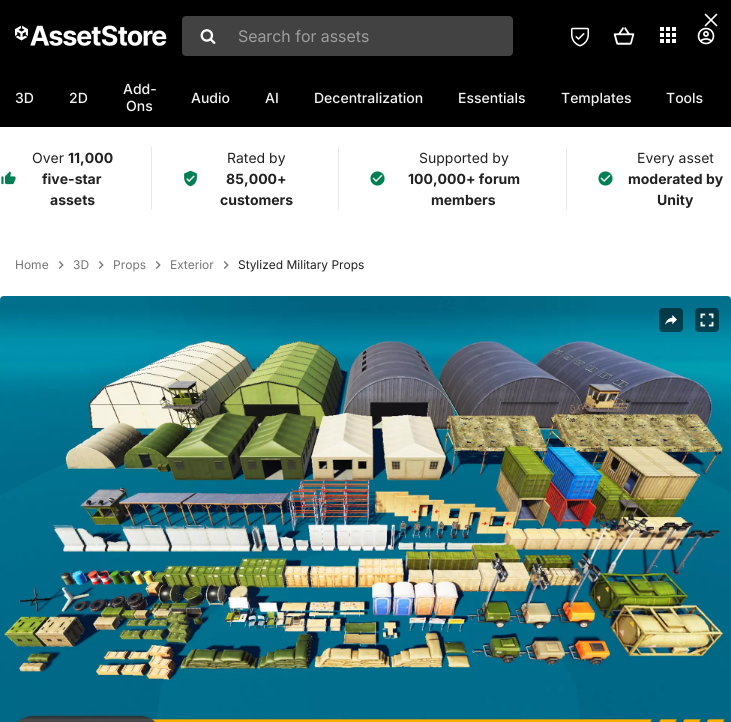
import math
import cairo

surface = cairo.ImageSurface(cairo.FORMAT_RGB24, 731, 722)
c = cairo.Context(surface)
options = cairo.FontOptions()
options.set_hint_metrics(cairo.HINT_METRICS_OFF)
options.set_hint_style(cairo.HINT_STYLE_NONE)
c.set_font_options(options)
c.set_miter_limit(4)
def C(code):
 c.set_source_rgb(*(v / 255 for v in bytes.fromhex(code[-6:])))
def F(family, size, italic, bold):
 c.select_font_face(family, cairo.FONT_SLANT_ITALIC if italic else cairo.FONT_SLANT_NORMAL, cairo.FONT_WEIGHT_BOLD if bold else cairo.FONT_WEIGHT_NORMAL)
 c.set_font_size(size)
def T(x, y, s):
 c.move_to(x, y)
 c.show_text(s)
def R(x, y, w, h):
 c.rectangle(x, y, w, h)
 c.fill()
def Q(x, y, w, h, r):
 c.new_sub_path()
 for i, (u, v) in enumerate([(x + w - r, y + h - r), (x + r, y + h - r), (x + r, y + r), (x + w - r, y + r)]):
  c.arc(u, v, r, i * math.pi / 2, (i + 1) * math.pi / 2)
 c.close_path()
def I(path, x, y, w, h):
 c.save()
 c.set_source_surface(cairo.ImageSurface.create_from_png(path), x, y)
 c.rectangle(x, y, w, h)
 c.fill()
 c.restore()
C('ffffff')
c.paint()
C('000000')
R(0,0,731,127)
I('1.png',704,13,14,14)
I('2.png',15,25,152,21)
C('424242')
Q(182,16,331,40,4)
c.fill()
I('3.png',200,29,16,15)
F('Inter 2',16,0,0)
C('9e9e9e')
T(238,42,'Search for assets')
I('4.png',571,27,18,20)
I('5.png',613,27,22,18)
I('6.png',660,27,16,16)
I('7.png',697,27,18,18)
F('Inter Medium',14,0,0)
C('f5f5f5')
T(15,103,'3D')
T(69,103,'2D')
T(123,94,'Add-')
T(126,111,'Ons')
T(191,103,'Audio')
T(265,103,'AI')
T(314,103,'Decentralization')
T(458,103,'Essentials')
T(561,103,'Templates')
T(666,103,'Tools')
I('8.png',1,171,15,14)
F('Inter',14,0,0)
C('212121')
T(32,163,'Over')
F('Inter',14,0,1)
T(68,163,'11,000')
T(42,184,'five-star')
T(50,205,'assets')
C('e9e9e9')
R(338,147,1,63)
R(151,147,1,63)
I('9.png',184,170,13,17)
F('Inter',14,0,0)
C('212121')
T(227,163,'Rated by')
F('Inter',14,0,1)
T(226,184,'85,000+')
T(220,205,'customers')
C('e9e9e9')
R(566,147,1,63)
I('10.png',370,171,15,15)
F('Inter',14,0,0)
C('212121')
T(419,163,'Supported by')
F('Inter',14,0,1)
T(408,184,'100,000+ forum')
T(431,205,'members')
I('10.png',598,171,15,15)
F('Inter',14,0,0)
T(637,163,'Every asset')
F('Inter',14,0,1)
T(628,184,'moderated by')
T(657,205,'Unity')
F('Inter',12,0,0)
C('757575')
T(15,269,'Home')
I('11.png',58,261,6,8)
T(73,269,'3D')
I('11.png',98,261,6,8)
T(113,269,'Props')
I('11.png',155,261,6,8)
T(170,269,'Exterior')
I('11.png',223,261,6,8)
C('212121')
T(238,269,'Stylized Military Props')
I('12.png',0,296,731,426)
c.set_source_rgba(0,0,0,0.5)
Q(659,308,24,24,4)
c.fill()
I('13.png',665,315,12,10)
Q(695,308,24,24,4)
c.fill()
I('14.png',700,313,14,14)
surface.write_to_png('o.png')
